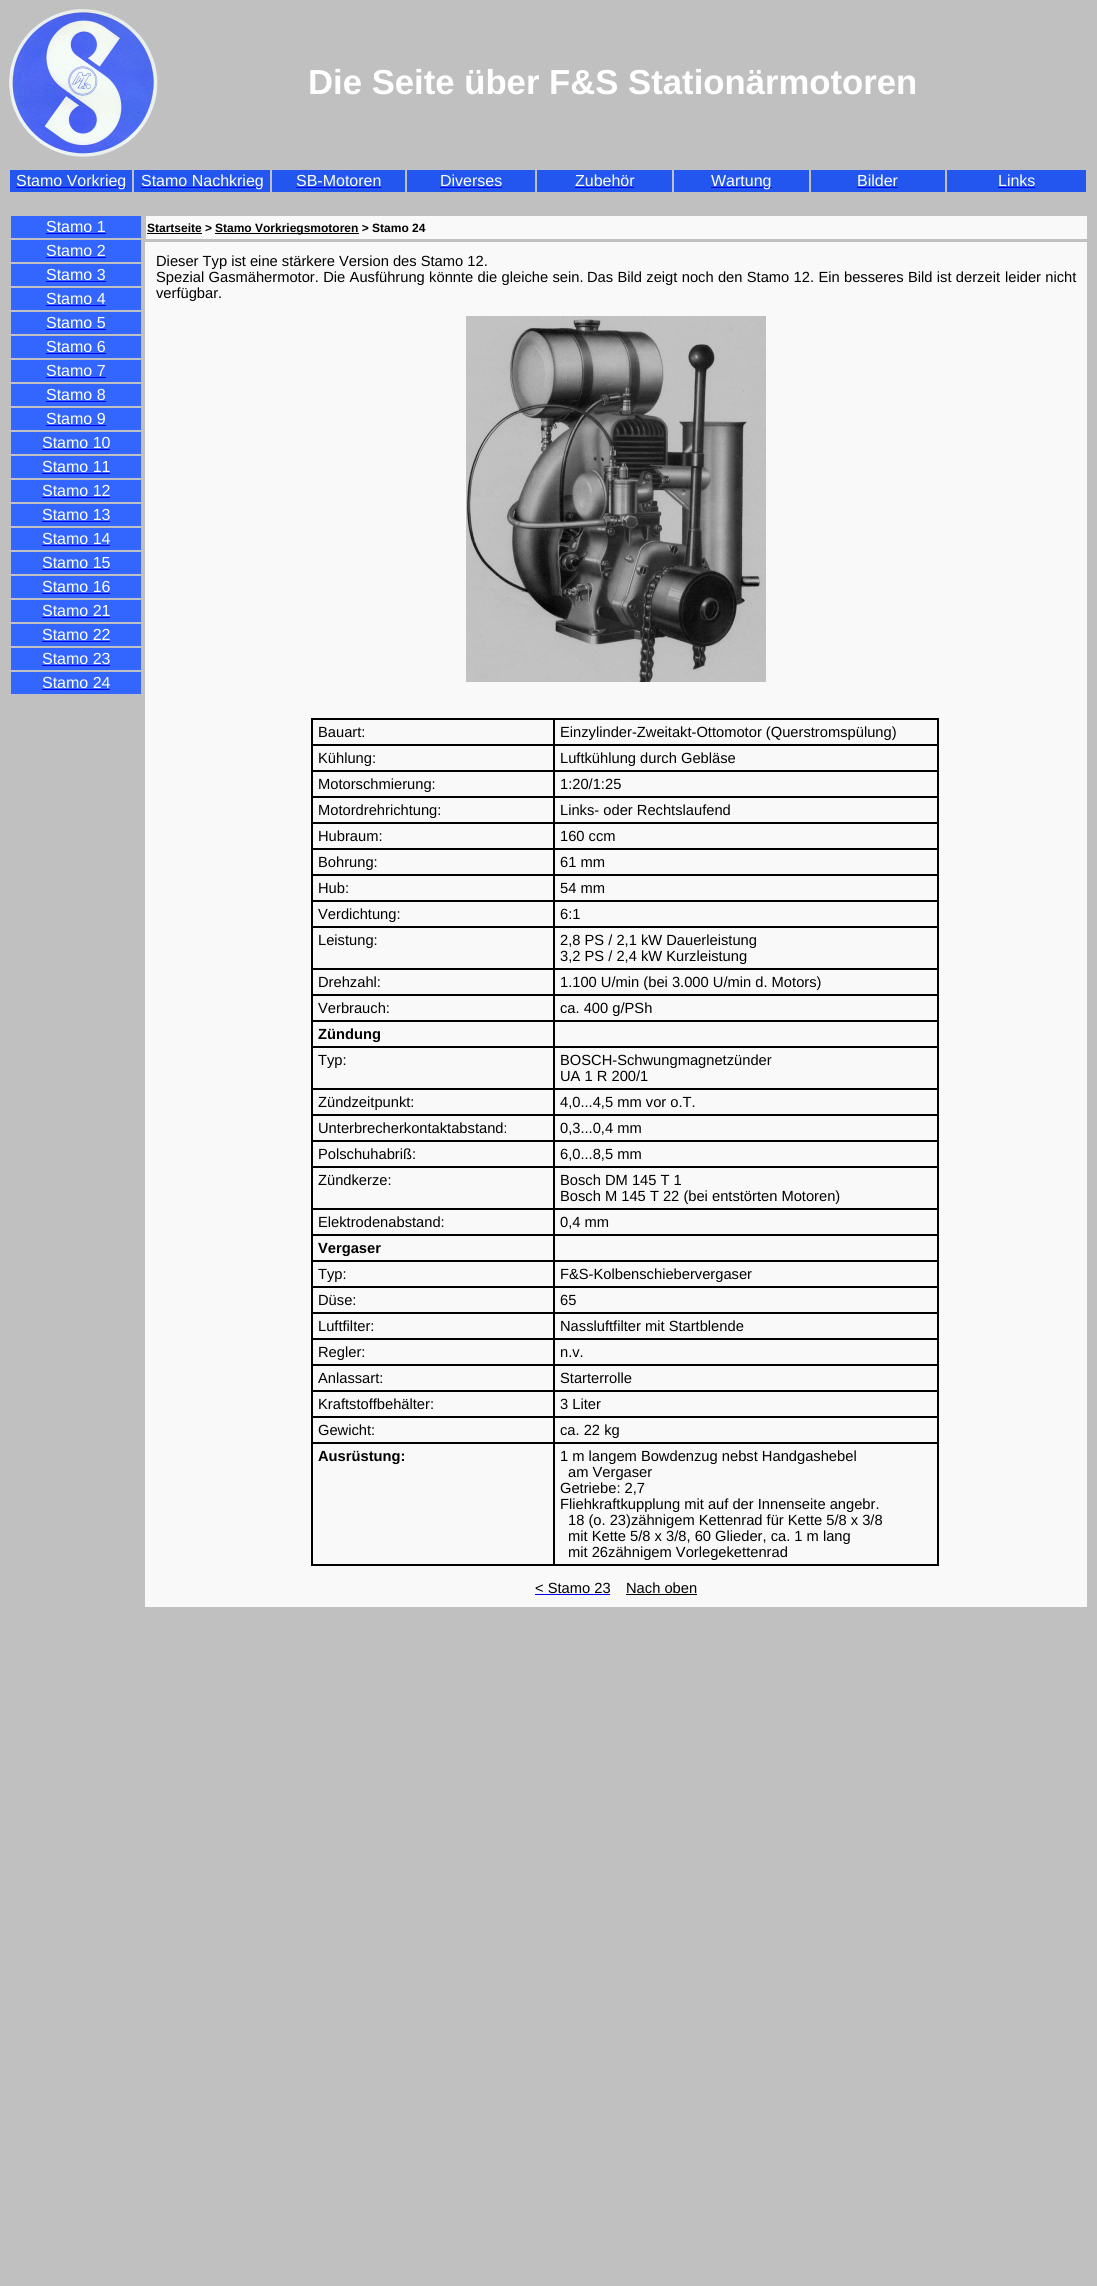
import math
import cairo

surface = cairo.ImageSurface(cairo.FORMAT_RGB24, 1097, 2286)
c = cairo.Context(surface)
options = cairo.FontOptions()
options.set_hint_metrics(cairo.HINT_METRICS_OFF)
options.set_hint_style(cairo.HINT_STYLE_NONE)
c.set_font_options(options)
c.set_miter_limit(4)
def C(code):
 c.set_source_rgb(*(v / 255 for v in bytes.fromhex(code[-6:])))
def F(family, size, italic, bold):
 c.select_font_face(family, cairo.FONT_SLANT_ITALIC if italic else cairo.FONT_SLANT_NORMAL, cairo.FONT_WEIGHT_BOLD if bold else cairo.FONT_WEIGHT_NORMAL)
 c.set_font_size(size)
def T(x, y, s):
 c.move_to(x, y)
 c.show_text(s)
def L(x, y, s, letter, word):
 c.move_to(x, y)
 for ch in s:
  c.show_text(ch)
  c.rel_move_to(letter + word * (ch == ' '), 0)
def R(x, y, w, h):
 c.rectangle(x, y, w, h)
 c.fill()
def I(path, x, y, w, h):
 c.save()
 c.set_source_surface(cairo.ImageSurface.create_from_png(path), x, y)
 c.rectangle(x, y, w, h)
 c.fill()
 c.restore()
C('c0c0c0')
c.paint()
I('1.png',8,8,150,149)
F('Liberation Sans',34.7,0,1)
C('ffffff')
T(308,94,'Die Seite über F&S Stationärmotoren')
C('2356ee')
R(10,170,122,22)
C('0000ee')
R(16,187,110,1)
F('Liberation Sans',16,0,0)
C('ffffff')
T(16,186,'Stamo Vorkrieg')
C('2356ee')
R(134,170,136,22)
C('0000ee')
R(141,187,122,1)
C('ffffff')
T(141,186,'Stamo Nachkrieg')
C('2356ee')
R(272,170,133,22)
C('ffffff')
T(296,186,'SB-Motoren')
C('0000ee')
R(296,187,85,1)
C('2356ee')
R(407,170,128,22)
C('ffffff')
T(440,186,'Diverses')
C('0000ee')
R(440,187,62,1)
C('2356ee')
R(537,170,135,22)
C('ffffff')
T(575,186,'Zubehör')
C('0000ee')
R(575,187,59,1)
C('2356ee')
R(674,170,135,22)
C('0000ee')
R(711,187,61,1)
C('ffffff')
T(711,186,'Wartung')
C('2356ee')
R(811,170,134,22)
C('ffffff')
T(857,186,'Bilder')
C('0000ee')
R(857,187,41,1)
C('2356ee')
R(947,170,139,22)
C('ffffff')
T(998,186,'Links')
C('0000ee')
R(998,187,37,1)
C('3366ff')
R(11,216,130,22)
C('ffffff')
T(46,232,'Stamo 1')
C('0000ee')
R(46,233,60,1)
C('3366ff')
R(11,240,130,22)
C('ffffff')
T(46,256,'Stamo 2')
C('0000ee')
R(46,257,60,1)
C('3366ff')
R(11,264,130,22)
C('ffffff')
T(46,280,'Stamo 3')
C('0000ee')
R(46,281,60,1)
C('3366ff')
R(11,288,130,22)
C('ffffff')
T(46,304,'Stamo 4')
C('0000ee')
R(46,305,60,1)
C('3366ff')
R(11,312,130,22)
C('ffffff')
T(46,328,'Stamo 5')
C('0000ee')
R(46,329,60,1)
C('3366ff')
R(11,336,130,22)
C('ffffff')
T(46,352,'Stamo 6')
C('0000ee')
R(46,353,60,1)
C('3366ff')
R(11,360,130,22)
C('ffffff')
T(46,376,'Stamo 7')
C('0000ee')
R(46,377,60,1)
C('3366ff')
R(11,384,130,22)
C('ffffff')
T(46,400,'Stamo 8')
C('0000ee')
R(46,401,60,1)
C('3366ff')
R(11,408,130,22)
C('ffffff')
T(46,424,'Stamo 9')
C('0000ee')
R(46,425,60,1)
C('3366ff')
R(11,432,130,22)
C('ffffff')
T(42,448,'Stamo 10')
C('0000ee')
R(42,449,68,1)
C('3366ff')
R(11,456,130,22)
C('ffffff')
T(42,472,'Stamo 11')
C('0000ee')
R(42,473,68,1)
C('3366ff')
R(11,480,130,22)
C('ffffff')
T(42,496,'Stamo 12')
C('0000ee')
R(42,497,68,1)
C('3366ff')
R(11,504,130,22)
C('ffffff')
T(42,520,'Stamo 13')
C('0000ee')
R(42,521,68,1)
C('3366ff')
R(11,528,130,22)
C('ffffff')
T(42,544,'Stamo 14')
C('0000ee')
R(42,545,68,1)
C('3366ff')
R(11,552,130,22)
C('ffffff')
T(42,568,'Stamo 15')
C('0000ee')
R(42,569,68,1)
C('3366ff')
R(11,576,130,22)
C('ffffff')
T(42,592,'Stamo 16')
C('0000ee')
R(42,593,68,1)
C('3366ff')
R(11,600,130,22)
C('ffffff')
T(42,616,'Stamo 21')
C('0000ee')
R(42,617,68,1)
C('3366ff')
R(11,624,130,22)
C('ffffff')
T(42,640,'Stamo 22')
C('0000ee')
R(42,641,68,1)
C('3366ff')
R(11,648,130,22)
C('ffffff')
T(42,664,'Stamo 23')
C('0000ee')
R(42,665,68,1)
C('3366ff')
R(11,672,130,22)
C('ffffff')
T(42,688,'Stamo 24')
C('0000ee')
R(42,689,68,1)
C('f9f9f9')
R(146,216,941,23)
F('Liberation Sans',12,0,1)
C('000000')
T(147,232,'Startseite >')
R(147,233,55,1)
R(215,233,144,1)
T(215,232,'Stamo Vorkriegsmotoren > Stamo 24')
C('f9f9f9')
R(145,242,942,1365)
F('Liberation Sans',14.7,0,0)
C('000000')
T(156,266,'Dieser Typ ist eine stärkere Version des Stamo 12.')
L(156,282,'Spezial Gasmähermotor. Die Ausführung könnte die gleiche sein.',0,.25)
L(587,282,'Das Bild zeigt noch den Stamo 12. Ein besseres Bild ist derzeit',0,.25)
L(1005,282,'leider nicht',0,.25)
T(156,298,'verfügbar.')
I('2.png',466,316,300,366)
R(553,718,386,2)
R(553,744,386,2)
R(553,770,386,2)
R(553,796,386,2)
R(553,822,386,2)
R(553,848,386,2)
R(553,874,386,2)
R(553,900,386,2)
R(553,926,386,2)
R(553,968,386,2)
R(553,994,386,2)
R(553,1020,386,2)
R(553,1046,386,2)
R(553,1088,386,2)
R(553,1114,386,2)
R(553,1140,386,2)
R(553,1166,386,2)
R(553,1208,386,2)
R(553,1234,386,2)
R(553,1260,386,2)
R(553,1286,386,2)
R(553,1312,386,2)
R(553,1338,386,2)
R(553,1364,386,2)
R(553,1390,386,2)
R(553,1416,386,2)
R(553,1442,386,2)
R(937,1442,2,124)
R(553,1564,386,2)
R(553,1442,2,124)
R(311,1442,244,2)
R(553,1416,2,28)
R(311,1416,244,2)
R(553,1390,2,28)
R(311,1390,244,2)
R(553,1364,2,28)
R(311,1364,244,2)
R(553,1338,2,28)
R(311,1338,244,2)
R(553,1312,2,28)
R(311,1312,244,2)
R(553,1286,2,28)
R(311,1286,244,2)
R(553,1260,2,28)
R(311,1260,244,2)
R(553,1234,2,28)
R(311,1234,244,2)
R(553,1208,2,28)
R(311,1208,244,2)
R(553,1166,2,44)
R(311,1166,244,2)
R(553,1140,2,28)
R(311,1140,244,2)
R(553,1114,2,28)
R(311,1114,244,2)
R(553,1088,2,28)
R(311,1088,244,2)
R(553,1046,2,44)
R(311,1046,244,2)
R(553,1020,2,28)
R(311,1020,244,2)
R(553,994,2,28)
R(311,994,244,2)
R(553,968,2,28)
R(311,968,244,2)
R(553,926,2,44)
R(311,926,244,2)
R(553,900,2,28)
R(311,900,244,2)
R(553,874,2,28)
R(311,874,244,2)
R(553,848,2,28)
R(311,848,244,2)
R(553,822,2,28)
R(311,822,244,2)
R(553,796,2,28)
R(311,796,244,2)
R(553,770,2,28)
R(311,770,244,2)
R(553,744,2,28)
R(311,744,244,2)
R(553,718,2,28)
R(311,718,244,2)
R(311,1564,244,2)
R(311,1442,2,124)
R(311,1416,2,28)
R(311,1390,2,28)
R(311,1364,2,28)
R(311,1338,2,28)
R(311,1312,2,28)
R(311,1286,2,28)
R(311,1260,2,28)
R(311,1234,2,28)
R(311,1208,2,28)
R(311,1166,2,44)
R(311,1140,2,28)
R(311,1114,2,28)
R(311,1088,2,28)
R(311,1046,2,44)
R(311,1020,2,28)
R(311,994,2,28)
R(311,968,2,28)
R(311,926,2,44)
R(311,900,2,28)
R(311,874,2,28)
R(311,848,2,28)
R(311,822,2,28)
R(311,796,2,28)
R(311,770,2,28)
R(311,744,2,28)
R(311,718,2,28)
T(318,737,'Bauart:')
R(937,1416,2,28)
R(937,1390,2,28)
R(937,1364,2,28)
R(937,1338,2,28)
R(937,1312,2,28)
R(937,1286,2,28)
R(937,1260,2,28)
R(937,1234,2,28)
R(937,1208,2,28)
R(937,1166,2,44)
R(937,1140,2,28)
R(937,1114,2,28)
R(937,1088,2,28)
R(937,1046,2,44)
R(937,1020,2,28)
R(937,994,2,28)
R(937,968,2,28)
R(937,926,2,44)
R(937,900,2,28)
R(937,874,2,28)
R(937,848,2,28)
R(937,822,2,28)
R(937,796,2,28)
R(937,770,2,28)
R(937,744,2,28)
R(937,718,2,28)
T(560,737,'Einzylinder-Zweitakt-Ottomotor (Querstromspülung)')
T(318,763,'Kühlung:')
T(560,763,'Luftkühlung durch Gebläse')
T(318,789,'Motorschmierung:')
T(560,789,'1:20/1:25')
T(318,815,'Motordrehrichtung:')
T(560,815,'Links- oder Rechtslaufend')
T(318,841,'Hubraum:')
T(560,841,'160 ccm')
T(318,867,'Bohrung:')
T(560,867,'61 mm')
T(318,893,'Hub:')
T(560,893,'54 mm')
T(318,919,'Verdichtung:')
T(560,919,'6:1')
T(318,945,'Leistung:')
T(560,945,'2,8 PS / 2,1 kW Dauerleistung')
T(560,961,'3,2 PS / 2,4 kW Kurzleistung')
T(318,987,'Drehzahl:')
T(560,987,'1.100 U/min (bei 3.000 U/min d. Motors)')
T(318,1013,'Verbrauch:')
T(560,1013,'ca. 400 g/PSh')
F('Liberation Sans',14.7,0,1)
T(318,1039,'Zündung')
F('Liberation Sans',14.7,0,0)
T(318,1065,'Typ:')
T(560,1065,'BOSCH-Schwungmagnetzünder')
T(560,1081,'UA 1 R 200/1')
T(318,1107,'Zündzeitpunkt:')
T(560,1107,'4,0...4,5 mm vor o.T.')
T(318,1133,'Unterbrecherkontaktabstand:')
T(560,1133,'0,3...0,4 mm')
T(318,1159,'Polschuhabriß:')
T(560,1159,'6,0...8,5 mm')
T(318,1185,'Zündkerze:')
T(560,1185,'Bosch DM 145 T 1')
T(560,1201,'Bosch M 145 T 22 (bei entstörten Motoren)')
T(318,1227,'Elektrodenabstand:')
T(560,1227,'0,4 mm')
F('Liberation Sans',14.7,0,1)
T(318,1253,'Vergaser')
F('Liberation Sans',14.7,0,0)
T(318,1279,'Typ:')
T(560,1279,'F&S-Kolbenschiebervergaser')
T(318,1305,'Düse:')
T(560,1305,'65')
T(318,1331,'Luftfilter:')
T(560,1331,'Nassluftfilter mit Startblende')
T(318,1357,'Regler:')
T(560,1357,'n.v.')
T(318,1383,'Anlassart:')
T(560,1383,'Starterrolle')
T(318,1409,'Kraftstoffbehälter:')
T(560,1409,'3 Liter')
T(318,1435,'Gewicht:')
T(560,1435,'ca. 22 kg')
F('Liberation Sans',14.7,0,1)
T(318,1461,'Ausrüstung:')
F('Liberation Sans',14.7,0,0)
T(560,1461,'1 m langem Bowdenzug nebst Handgashebel')
T(568,1477,'am Vergaser')
T(560,1493,'Getriebe: 2,7')
T(560,1509,'Fliehkraftkupplung mit auf der Innenseite angebr.')
T(568,1525,'18 (o. 23)zähnigem Kettenrad für Kette 5/8 x 3/8')
T(568,1541,'mit Kette 5/8 x 3/8, 60 Glieder, ca. 1 m lang')
T(568,1557,'mit 26zähnigem Vorlegekettenrad')
T(535,1593,'< Stamo 23')
C('0000ee')
R(535,1594,75,1)
C('000000')
T(626,1593,'Nach oben')
R(626,1594,71,1)
surface.write_to_png('o.png')
